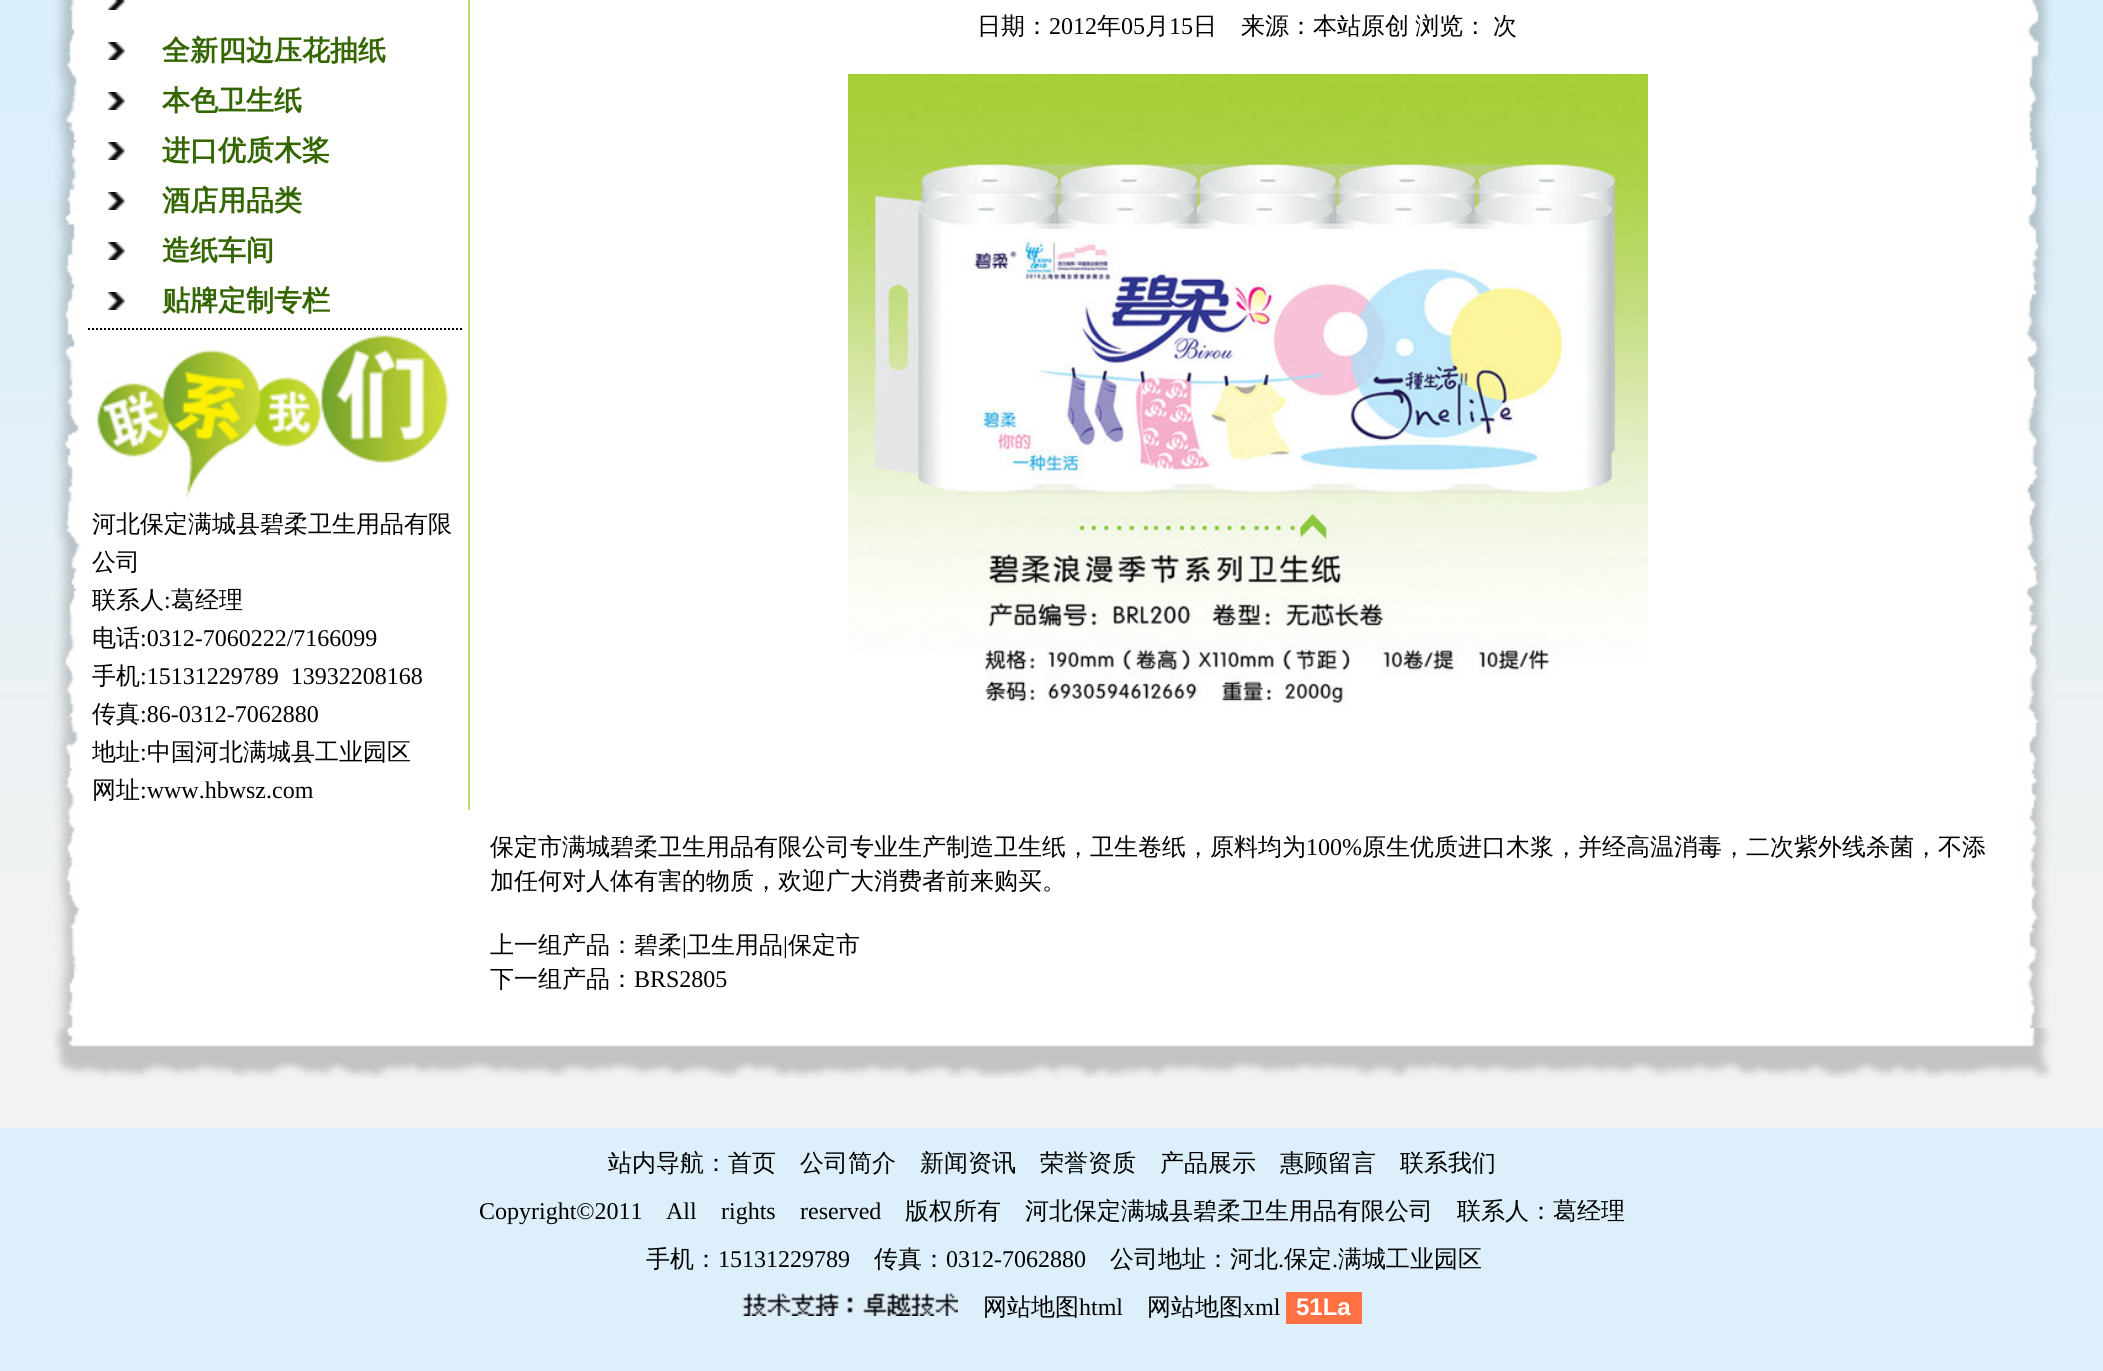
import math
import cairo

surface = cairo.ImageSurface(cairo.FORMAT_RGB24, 2103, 1371)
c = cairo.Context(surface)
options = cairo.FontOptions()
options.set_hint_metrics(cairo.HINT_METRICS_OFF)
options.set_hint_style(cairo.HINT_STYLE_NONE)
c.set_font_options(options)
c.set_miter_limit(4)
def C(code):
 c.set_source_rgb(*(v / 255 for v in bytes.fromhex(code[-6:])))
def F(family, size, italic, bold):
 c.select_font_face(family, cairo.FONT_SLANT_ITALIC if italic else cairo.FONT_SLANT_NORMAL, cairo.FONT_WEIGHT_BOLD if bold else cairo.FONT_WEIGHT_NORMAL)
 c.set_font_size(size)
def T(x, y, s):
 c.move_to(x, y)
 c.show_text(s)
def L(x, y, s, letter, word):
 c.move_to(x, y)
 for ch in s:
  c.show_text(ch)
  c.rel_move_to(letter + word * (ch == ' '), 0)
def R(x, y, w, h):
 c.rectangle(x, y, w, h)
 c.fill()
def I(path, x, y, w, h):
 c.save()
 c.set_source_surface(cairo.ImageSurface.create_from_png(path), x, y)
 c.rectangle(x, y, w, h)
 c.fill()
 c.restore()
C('dceffa')
c.paint()
I('1.png',0,0,2103,1128)
I('2.png',48,0,2008,1028)
C('b5e061')
R(468,0,2,810)
c.new_path()
c.move_to(88,329)
c.line_to(464,329)
C('000000')
c.set_dash([2,2])
c.stroke()
I('3.png',108,0,18,10)
I('4.png',108,42,18,18)
F('WenQuanYi Zen Hei',28,0,1)
C('336600')
T(162,60,'全新四边压花抽纸')
I('4.png',108,92,18,18)
T(162,110,'本色卫生纸')
I('4.png',108,142,18,18)
T(162,160,'进口优质木桨')
I('4.png',108,192,18,18)
T(162,210,'酒店用品类')
I('4.png',108,242,18,18)
T(162,260,'造纸车间')
I('4.png',108,292,18,18)
T(162,310,'贴牌定制专栏')
I('5.png',95,335,354,164)
F('WenQuanYi Zen Hei Medium',24,0,0)
C('000000')
T(92,532,'河北保定满城县碧柔卫生用品有限')
T(92,570,'公司')
T(92,608,'联系人')
F('Liberation Serif',24,0,0)
T(164,608,':')
F('WenQuanYi Zen Hei Medium',24,0,0)
T(171,608,'葛经理')
T(92,646,'电话')
F('Liberation Serif',24,0,0)
T(140,646,':0312-7060222/7166099')
F('WenQuanYi Zen Hei Medium',24,0,0)
T(92,684,'手机')
F('Liberation Serif',24,0,0)
T(140,684,':15131229789  13932208168')
F('WenQuanYi Zen Hei Medium',24,0,0)
T(92,722,'传真')
F('Liberation Serif',24,0,0)
T(140,722,':86-0312-7062880')
F('WenQuanYi Zen Hei Medium',24,0,0)
T(92,760,'地址')
F('Liberation Serif',24,0,0)
T(140,760,':')
F('WenQuanYi Zen Hei Medium',24,0,0)
T(147,760,'中国河北满城县工业园区')
T(92,798,'网址')
F('Liberation Serif',24,0,0)
T(140,798,':www.hbwsz.com')
F('WenQuanYi Zen Hei Medium',24,0,0)
T(977,34,'日期：')
F('Liberation Serif',24,0,0)
T(1049,34,'2012')
F('WenQuanYi Zen Hei Medium',24,0,0)
T(1097,34,'年')
F('Liberation Serif',24,0,0)
T(1121,34,'05')
F('WenQuanYi Zen Hei Medium',24,0,0)
T(1145,34,'月')
F('Liberation Serif',24,0,0)
T(1169,34,'15')
F('WenQuanYi Zen Hei Medium',24,0,0)
L(1193,34,'日　来源：本站原创 浏览：',0,-1)
T(1493,34,'次')
I('6.png',848,74,800,631)
T(490,855,'保定市满城碧柔卫生用品有限公司专业生产制造卫生纸，卫生卷纸，原料均为')
F('Liberation Serif',24,0,0)
T(1306,855,'100%')
F('WenQuanYi Zen Hei Medium',24,0,0)
T(1362,855,'原生优质进口木浆，并经高温消毒，二次紫外线杀菌，不添')
T(490,889,'加任何对人体有害的物质，欢迎广大消费者前来购买。')
T(490,953,'上一组产品：碧柔')
F('Liberation Serif',24,0,0)
T(682,953,'|')
F('WenQuanYi Zen Hei Medium',24,0,0)
T(687,953,'卫生用品')
F('Liberation Serif',24,0,0)
T(783,953,'|')
F('WenQuanYi Zen Hei Medium',24,0,0)
T(788,953,'保定市')
T(490,987,'下一组产品：')
F('Liberation Serif',24,0,0)
T(634,987,'BRS2805')
I('7.png',52,1028,2000,51)
F('WenQuanYi Zen Hei Medium',24,0,0)
T(608,1171,'站内导航：首页')
T(800,1171,'公司简介')
T(920,1171,'新闻资讯')
T(1040,1171,'荣誉资质')
T(1160,1171,'产品展示')
T(1280,1171,'惠顾留言')
T(1400,1171,'联系我们')
F('Liberation Serif',24,0,0)
T(479,1219,'Copyright©2011')
T(666,1219,'All')
T(721,1219,'rights')
T(800,1219,'reserved')
F('WenQuanYi Zen Hei Medium',24,0,0)
T(905,1219,'版权所有　河北保定满城县碧柔卫生用品有限公司　联系人：葛经理')
T(646,1267,'手机：')
F('Liberation Serif',24,0,0)
T(718,1267,'15131229789')
F('WenQuanYi Zen Hei Medium',24,0,0)
T(874,1267,'传真：')
F('Liberation Serif',24,0,0)
T(946,1267,'0312-7062880')
F('WenQuanYi Zen Hei Medium',24,0,0)
T(1110,1267,'公司地址：河北')
F('Liberation Serif',24,0,0)
T(1278,1267,'.')
F('WenQuanYi Zen Hei Medium',24,0,0)
T(1284,1267,'保定')
F('Liberation Serif',24,0,0)
T(1332,1267,'.')
F('WenQuanYi Zen Hei Medium',24,0,0)
T(1338,1267,'满城工业园区')
I('8.png',742,1292,216,24)
T(983,1315,'网站地图')
F('Liberation Serif',24,0,0)
T(1079,1315,'html')
F('WenQuanYi Zen Hei Medium',24,0,0)
T(1147,1315,'网站地图')
F('Liberation Serif',24,0,0)
T(1243,1315,'xml')
C('ff7043')
R(1286,1292,76,32)
F('Liberation Sans',24,0,1)
C('ffffff')
T(1296,1315,'51La')
surface.write_to_png('o.png')
